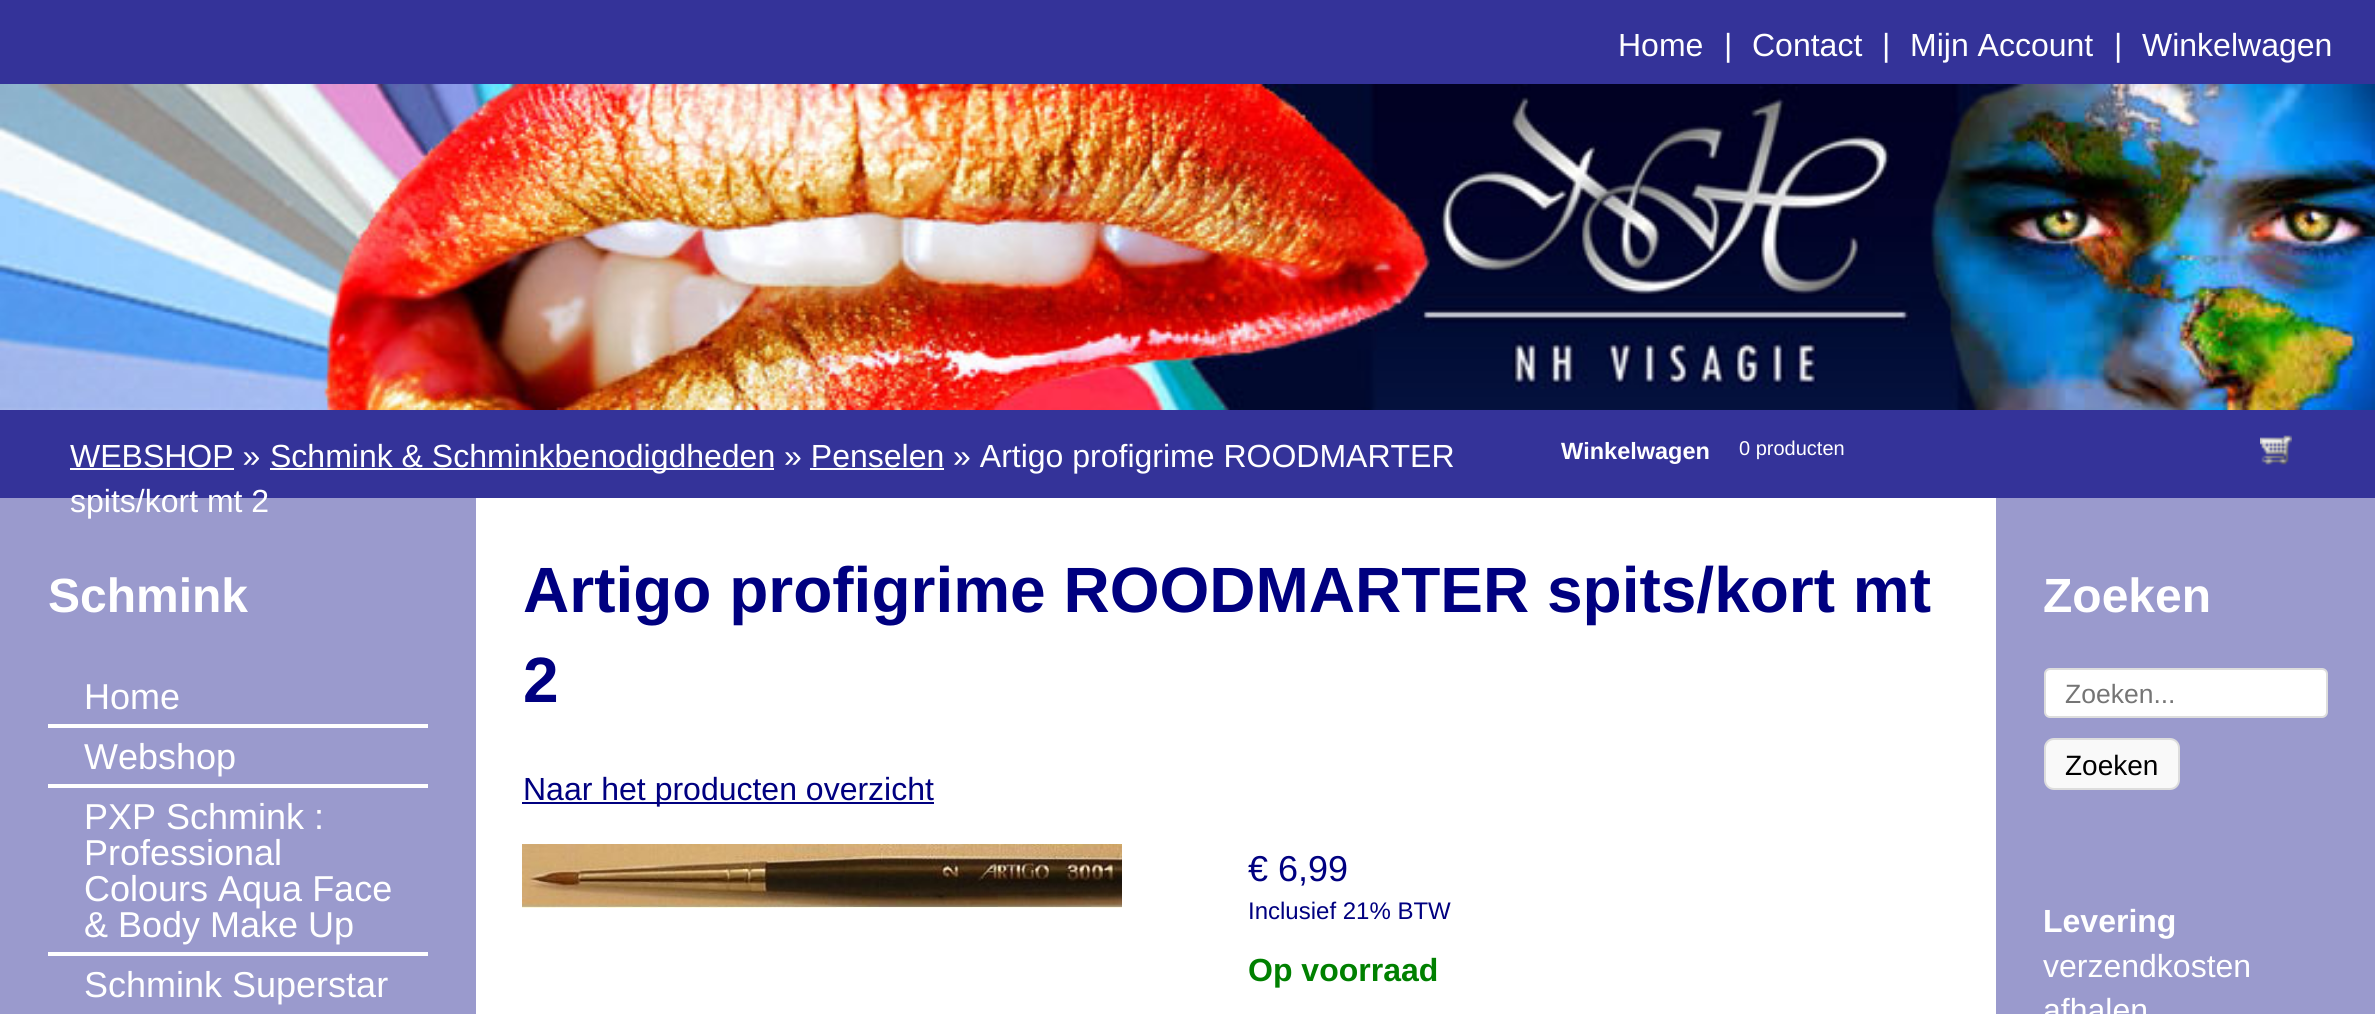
import math
import cairo

surface = cairo.ImageSurface(cairo.FORMAT_RGB24, 2375, 1014)
c = cairo.Context(surface)
options = cairo.FontOptions()
options.set_hint_metrics(cairo.HINT_METRICS_OFF)
options.set_hint_style(cairo.HINT_STYLE_NONE)
c.set_font_options(options)
c.set_miter_limit(4)
def C(code):
 c.set_source_rgb(*(v / 255 for v in bytes.fromhex(code[-6:])))
def F(family, size, italic, bold):
 c.select_font_face(family, cairo.FONT_SLANT_ITALIC if italic else cairo.FONT_SLANT_NORMAL, cairo.FONT_WEIGHT_BOLD if bold else cairo.FONT_WEIGHT_NORMAL)
 c.set_font_size(size)
def T(x, y, s):
 c.move_to(x, y)
 c.show_text(s)
def R(x, y, w, h):
 c.rectangle(x, y, w, h)
 c.fill()
def Q(x, y, w, h, r):
 c.new_sub_path()
 for i, (u, v) in enumerate([(x + w - r, y + h - r), (x + r, y + h - r), (x + r, y + r), (x + w - r, y + r)]):
  c.arc(u, v, r, i * math.pi / 2, (i + 1) * math.pi / 2)
 c.close_path()
def I(path, x, y, w, h):
 c.save()
 c.set_source_surface(cairo.ImageSurface.create_from_png(path), x, y)
 c.rectangle(x, y, w, h)
 c.fill()
 c.restore()
C('343399')
c.paint()
F('Liberation Sans',32,0,0)
C('ffffff')
T(1618,56,'Home')
T(1724,56,'|')
T(1752,56,'Contact')
T(1882,56,'|')
T(1910,56,'Mijn Account')
T(2114,56,'|')
T(2142,56,'Winkelwagen')
I('1.png',0,84,2375,326)
T(70,467,'WEBSHOP »')
R(70,468,164,2)
R(270,468,504,2)
T(270,467,'Schmink & Schminkbenodigdheden » Penselen » Artigo profigrime ROODMARTER')
R(810,468,134,2)
C('9a9acd')
R(0,498,476,516)
C('ffffff')
T(70,512,'spits/kort mt 2')
F('Liberation Sans',23.5,0,1)
T(1561,459,'Winkelwagen')
F('Liberation Sans',20,0,0)
T(1739,455,'0 producten')
I('2.png',2260,435,32,30)
F('Liberation Sans',48,0,1)
T(48,612,'Schmink')
R(48,724,380,4)
F('Liberation Sans',36,0,0)
T(84,709,'Home')
R(48,784,380,4)
T(84,769,'Webshop')
R(48,952,380,4)
T(84,829,'PXP Schmink :')
T(84,865,'Professional')
T(84,901,'Colours Aqua Face')
T(84,937,'& Body Make Up')
T(84,997,'Schmink Superstar')
R(476,498,1520,516)
F('Liberation Sans',64,0,1)
C('000080')
T(523,612,'Artigo profigrime ROODMARTER spits/kort mt')
T(523,702,'2')
R(522,802,412,2)
F('Liberation Sans',32,0,0)
T(523,800,'Naar het producten overzicht')
I('3.png',522,844,600,64)
F('Liberation Sans',36,0,0)
T(1248,881,'€ 6,99')
F('Liberation Sans',24,0,0)
T(1248,919,'Inclusief 21% BTW')
F('Liberation Sans',32,0,1)
C('008000')
T(1248,981,'Op voorraad')
C('9a9acd')
R(1996,498,379,516)
F('Liberation Sans',48,0,1)
C('ffffff')
T(2043,612,'Zoeken')
Q(2045,669,282,48,5)
c.fill_preserve()
C('dddddd')
c.stroke()
F('Liberation Sans',26.5,0,0)
C('757575')
T(2065,703,'Zoeken...')
C('f9f9f9')
Q(2045,739,134,50,9)
c.fill_preserve()
C('dddddd')
c.stroke()
F('Liberation Sans',28,0,0)
C('000000')
T(2065,775,'Zoeken')
F('Liberation Sans',32,0,1)
C('ffffff')
T(2043,932,'Levering')
F('Liberation Sans',32,0,0)
T(2043,977,'verzendkosten')
T(2043,1021,'afhalen')
surface.write_to_png('o.png')
